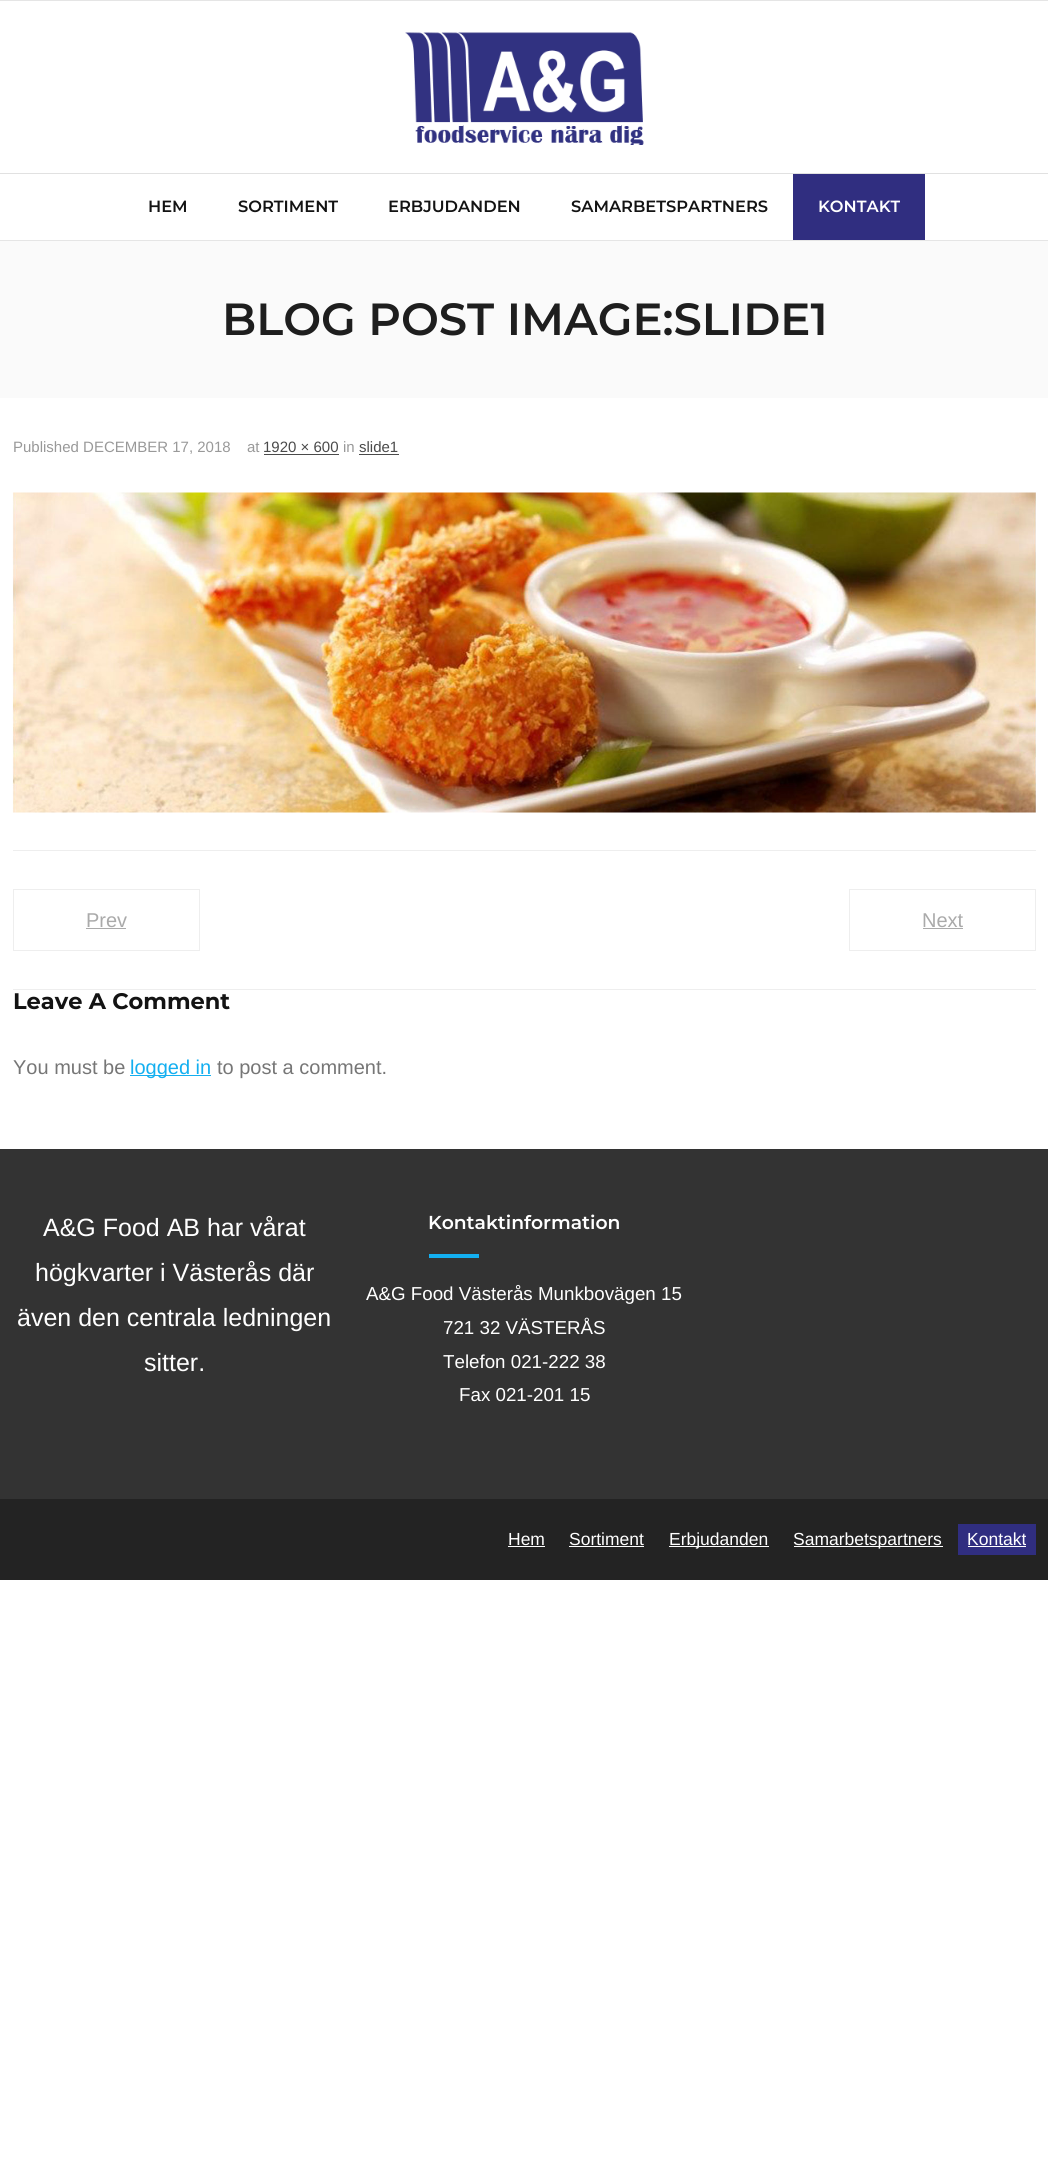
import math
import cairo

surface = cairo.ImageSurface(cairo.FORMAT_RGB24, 1048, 2176)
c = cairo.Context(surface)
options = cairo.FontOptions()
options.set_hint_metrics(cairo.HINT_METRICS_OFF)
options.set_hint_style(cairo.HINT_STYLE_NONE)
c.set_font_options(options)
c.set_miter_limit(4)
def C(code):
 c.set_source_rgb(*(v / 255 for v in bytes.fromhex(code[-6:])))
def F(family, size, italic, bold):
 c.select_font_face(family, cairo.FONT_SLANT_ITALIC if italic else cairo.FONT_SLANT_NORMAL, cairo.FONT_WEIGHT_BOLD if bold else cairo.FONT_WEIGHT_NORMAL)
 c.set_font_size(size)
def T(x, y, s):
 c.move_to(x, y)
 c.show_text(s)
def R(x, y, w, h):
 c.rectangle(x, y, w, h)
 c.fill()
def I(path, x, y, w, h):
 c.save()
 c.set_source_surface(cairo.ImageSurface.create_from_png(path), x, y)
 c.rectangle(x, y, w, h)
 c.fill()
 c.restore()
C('ffffff')
c.paint()
C('e5e5e5')
R(0,0,1048,1)
R(0,240,1048,1)
I('1.png',405,32,239,113)
C('e1e1e1')
R(0,173,1048,1)
F('Montserrat SemiBold',16.25,0,0)
C('131313')
T(148,212,'HEM')
T(238,212,'SORTIMENT')
T(388,212,'ERBJUDANDEN')
T(571,212,'SAMARBETSPARTNERS')
C('302e80')
R(793,174,132,66)
C('ffffff')
T(818,212,'KONTAKT')
C('fafafa')
R(0,241,1048,157)
F('Montserrat SemiBold',45,0,0)
C('1e1e1e')
T(222,335,'BLOG POST IMAGE:SLIDE1')
F('Liberation Sans',15,0,0)
C('999999')
T(13,452,'Published DECEMBER 17, 2018')
T(247,452,'at')
C('4a4a4a')
T(263,452,'1920 × 600')
R(264,454,75,1)
C('999999')
T(343,452,'in')
C('4a4a4a')
T(359,452,'slide1')
R(359,454,40,1)
I('2.png',12,492,1024,321)
C('eeeeee')
R(13,850,1023,1)
R(13,989,1023,1)
c.rectangle(13.5,889.5,186,61)
c.set_line_width(1)
c.stroke()
F('Liberation Sans',20,0,0)
C('aaaaaa')
T(86,927,'Prev')
R(86,928,40,1)
c.rectangle(849.5,889.5,186,61)
C('eeeeee')
c.stroke()
C('aaaaaa')
T(922,927,'Next')
R(923,928,40,1)
F('Montserrat',22.5,0,1)
C('131313')
T(13,1009,'Leave A Comment')
F('Liberation Sans',20,0,0)
C('767676')
T(13,1074,'You must be')
C('13aff0')
R(130,1075,81,1)
T(130,1074,'logged in')
C('767676')
T(217,1074,'to post a comment.')
C('333333')
R(0,1149,1048,350)
F('Liberation Sans',25,0,0)
C('ffffff')
T(43,1236,'A&G Food AB har vårat')
T(35,1281,'högkvarter i Västerås där')
T(17,1326,'även den centrala ledningen')
T(144,1371,'sitter.')
F('Montserrat SemiBold',18.75,0,0)
T(428,1229,'Kontaktinformation')
C('13aff0')
R(429,1254,50,4)
F('Liberation Sans',18.75,0,0)
C('ffffff')
T(366,1300,'A&G Food Västerås Munkbovägen 15')
T(443,1334,'721 32 VÄSTERÅS')
T(443,1368,'Telefon 021-222 38')
T(459,1401,'Fax 021-201 15')
C('232323')
R(0,1499,1048,81)
F('Liberation Sans',17.5,0,0)
C('ffffff')
T(508,1545,'Hem')
R(508,1546,37,1)
T(569,1545,'Sortiment')
R(569,1546,75,1)
R(669,1546,100,1)
T(669,1545,'Erbjudanden')
R(794,1546,149,1)
T(793,1545,'Samarbetspartners')
C('302e80')
R(958,1524,78,31)
C('ffffff')
T(967,1545,'Kontakt')
R(968,1546,58,1)
surface.write_to_png('o.png')
